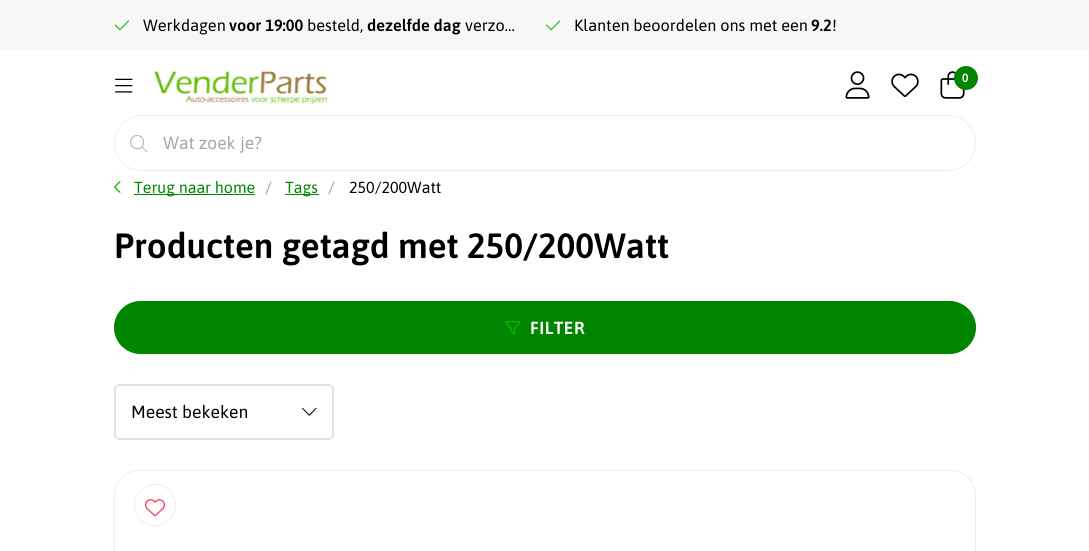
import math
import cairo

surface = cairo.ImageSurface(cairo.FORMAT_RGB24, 1089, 551)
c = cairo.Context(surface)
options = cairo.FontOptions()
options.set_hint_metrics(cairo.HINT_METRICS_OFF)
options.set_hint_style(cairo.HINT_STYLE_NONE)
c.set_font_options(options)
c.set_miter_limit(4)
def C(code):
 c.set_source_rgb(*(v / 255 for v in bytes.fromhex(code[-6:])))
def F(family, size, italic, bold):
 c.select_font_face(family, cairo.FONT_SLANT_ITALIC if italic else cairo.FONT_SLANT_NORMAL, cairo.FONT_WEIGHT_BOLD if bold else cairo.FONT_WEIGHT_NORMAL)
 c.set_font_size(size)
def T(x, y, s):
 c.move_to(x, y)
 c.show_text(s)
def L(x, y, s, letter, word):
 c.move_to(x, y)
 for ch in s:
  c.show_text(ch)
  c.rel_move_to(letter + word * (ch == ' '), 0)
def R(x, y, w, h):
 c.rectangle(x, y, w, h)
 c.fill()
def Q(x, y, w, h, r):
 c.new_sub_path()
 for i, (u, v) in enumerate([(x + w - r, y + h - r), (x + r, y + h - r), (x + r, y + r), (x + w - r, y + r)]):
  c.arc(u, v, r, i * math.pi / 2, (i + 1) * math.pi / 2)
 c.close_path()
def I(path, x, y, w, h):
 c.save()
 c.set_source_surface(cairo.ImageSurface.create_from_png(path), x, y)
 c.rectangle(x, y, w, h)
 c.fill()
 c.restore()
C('ffffff')
c.paint()
C('f7f7f7')
R(0,0,1089,50)
I('1.png',114,20,15,11)
F('Asap',16.25,0,0)
C('000000')
T(143,31,'Werkdagen')
F('Asap SemiBold',16.25,0,0)
T(229,31,'voor 19:00')
F('Asap',16.25,0,0)
T(307,31,'besteld,')
F('Asap SemiBold',16.25,0,0)
T(367,31,'dezelfde dag')
F('Asap',16.25,0,0)
T(465,31,'verzo…')
I('2.png',546,20,15,11)
T(574,31,'Klanten beoordelen ons met een')
F('Asap SemiBold',16.25,0,0)
T(811,31,'9.2')
F('Asap',16.25,0,0)
T(832,31,'!')
I('3.png',115,78,18,15)
I('4.png',154,71,173,33)
I('5.png',845,71,25,28)
I('6.png',891,73,28,24)
I('7.png',940,71,25,28)
C('008500')
c.arc(966,78,12,0,2 * math.pi)
c.fill()
F('Asap SemiBold',12,0,0)
C('ffffff')
T(962,82,'0')
Q(114.5,115.5,861,55,27.5)
C('e9ecef')
c.set_line_width(1)
c.stroke()
C('ffffff')
c.new_path()
c.move_to(142,116)
c.line_to(163,116)
c.line_to(163,170)
c.line_to(142,170)
c.curve_to(127,170,115,158,115,143)
c.curve_to(115,128,127,116,142,116)
c.close_path()
c.fill()
I('8.png',130,135,18,18)
c.new_path()
c.move_to(163,116)
c.line_to(948,116)
c.curve_to(963,116,975,128,975,143)
c.curve_to(975,158,963,170,948,170)
c.line_to(163,170)
c.close_path()
c.fill()
F('Asap',17.5,0,0)
C('a5a5a5')
T(163,149,'Wat zoek je?')
I('9.png',114,181,7,12)
C('008500')
R(134,194,121,1)
F('Asap',16,0,0)
T(134,193,'Terug naar home')
C('8898aa')
T(265,193,'/')
C('008500')
R(285,194,34,1)
T(285,193,'Tags')
C('8898aa')
T(328,193,'/')
C('000000')
T(349,193,'250/200Watt')
F('Asap SemiBold',35,0,0)
T(114,258,'Producten getagd met 250/200Watt')
C('008500')
Q(114.5,301.5,861,52,26)
c.fill_preserve()
c.stroke()
I('10.png',505,321,16,14)
F('Asap SemiBold',17.5,0,0)
C('ffffff')
L(530,334,'FILTER',.5,0)
Q(114.5,384.5,219,55,4.5)
C('e0e0e0')
c.stroke()
I('11.png',302,408,15,8)
Q(115.5,385.5,217,53,4.5)
C('dee2e6')
c.stroke()
F('Asap',17.5,0,0)
C('000000')
T(131,418,'Meest bekeken')
Q(114.5,470.5,861,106,24.5)
C('ededed')
c.stroke()
c.arc(155,505,20.5,0,2 * math.pi)
c.stroke()
I('12.png',145,499,20,18)
surface.write_to_png('o.png')
